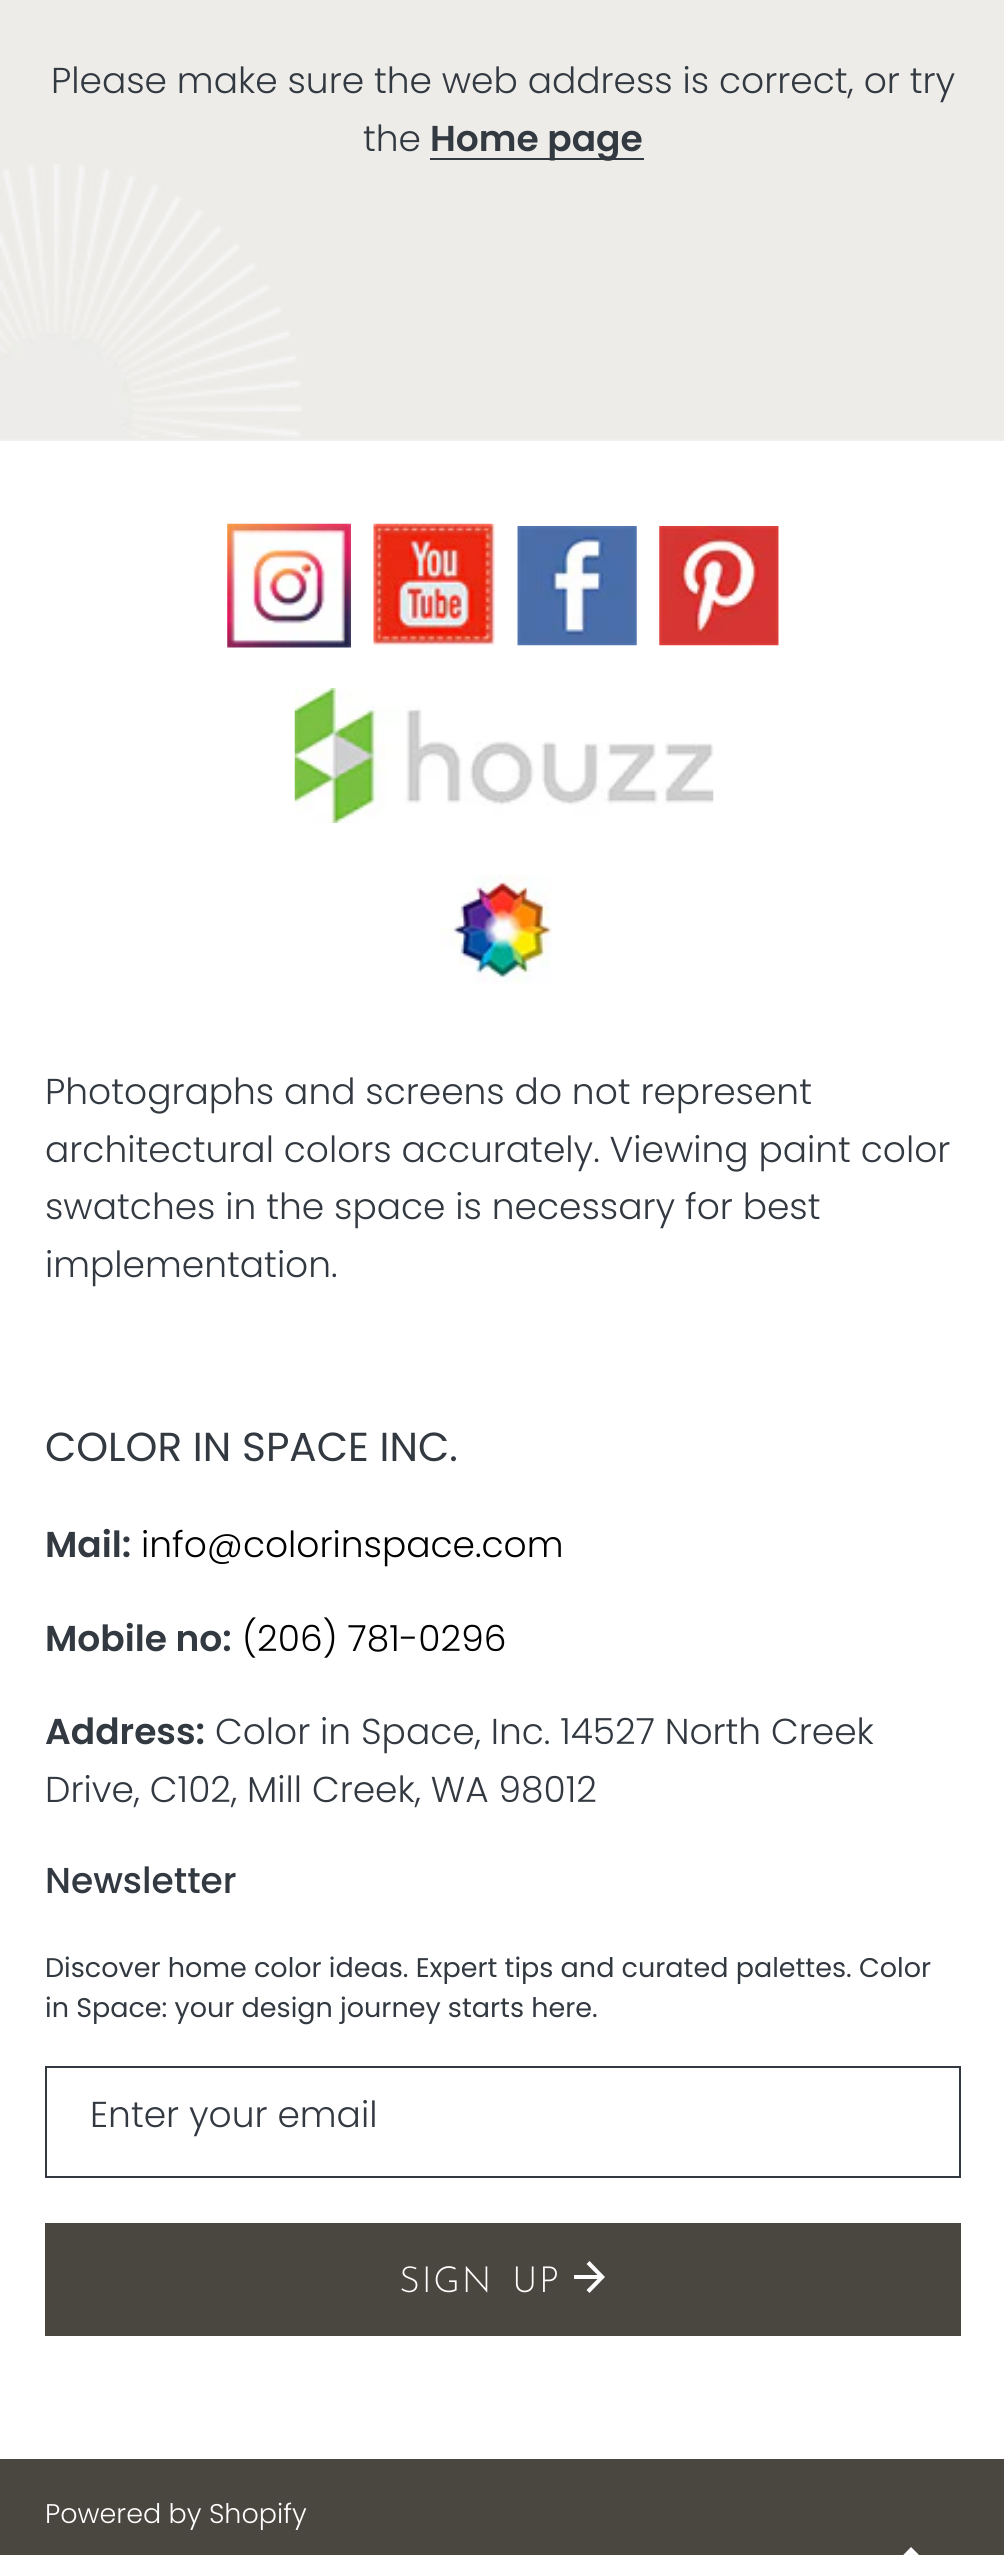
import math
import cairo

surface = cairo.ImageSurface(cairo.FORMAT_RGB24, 1004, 2555)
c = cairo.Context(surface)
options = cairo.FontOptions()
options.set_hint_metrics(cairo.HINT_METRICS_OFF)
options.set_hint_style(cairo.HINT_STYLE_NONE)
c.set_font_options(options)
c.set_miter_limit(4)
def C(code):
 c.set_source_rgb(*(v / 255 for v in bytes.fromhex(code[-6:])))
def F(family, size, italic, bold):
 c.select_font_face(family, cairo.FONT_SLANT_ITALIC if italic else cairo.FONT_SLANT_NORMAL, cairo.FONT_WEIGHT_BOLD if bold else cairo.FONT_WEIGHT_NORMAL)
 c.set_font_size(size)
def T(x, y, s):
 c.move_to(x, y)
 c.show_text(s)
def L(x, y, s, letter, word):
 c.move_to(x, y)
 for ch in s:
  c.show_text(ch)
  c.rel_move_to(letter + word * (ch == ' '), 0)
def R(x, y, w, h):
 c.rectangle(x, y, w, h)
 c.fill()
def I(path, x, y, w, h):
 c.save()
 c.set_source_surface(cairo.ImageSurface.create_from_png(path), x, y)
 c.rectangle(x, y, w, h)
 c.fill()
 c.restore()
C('ffffff')
c.paint()
C('edece9')
R(0,0,1004,439)
I('1.png',0,164,302,274)
F('Poppins Light',36,0,0)
C('333941')
T(51,93,'Please make sure the web address is correct, or try')
T(363,151,'the')
R(430,158,214,2)
F('Poppins SemiBold',36,0,0)
T(430,151,'Home page')
C('efeff0')
R(0,439,1004,2)
I('2.png',227,523,124,125)
I('3.png',373,523,122,123)
I('4.png',517,526,120,120)
I('5.png',659,526,120,120)
I('6.png',294,688,420,135)
I('7.png',441,875,112,109)
F('Poppins Light',36,0,0)
C('333941')
T(45,1104,'Photographs and screens do not represent')
T(45,1162,'architectural colors accurately. Viewing paint color')
T(45,1219,'swatches in the space is necessary for best')
T(45,1277,'implementation.')
F('Poppins',40.5,0,0)
T(45,1461,'COLOR IN SPACE INC.')
F('Poppins SemiBold',36,0,0)
T(45,1557,'Mail:')
F('Poppins Light',36,0,0)
C('000000')
T(141,1557,'info@colorinspace.com')
F('Poppins SemiBold',36,0,0)
C('333941')
T(45,1651,'Mobile no:')
F('Poppins Light',36,0,0)
C('000000')
T(242,1651,'(206) 781-0296')
F('Poppins SemiBold',36,0,0)
C('333941')
T(45,1744,'Address:')
F('Poppins Light',36,0,0)
T(215,1744,'Color in Space, Inc. 14527 North Creek')
T(45,1802,'Drive, C102, Mill Creek, WA 98012')
F('Poppins Medium',36,0,0)
T(45,1893,'Newsletter')
F('Poppins',27,0,0)
T(45,1977,'Discover home color ideas. Expert tips and curated palettes. Color')
T(45,2017,'in Space: your design journey starts here.')
c.rectangle(46,2067,914,110)
c.stroke()
F('Poppins Light',36,0,0)
T(90,2127,'Enter your email')
C('4a4640')
R(45,2223,916,113)
F('Josefin Sans Light',36,0,0)
C('ffffff')
L(399,2292,'SIGN UP',1.75,6)
c.new_path()
c.move_to(589.5,2261)
c.line_to(586.5,2264)
c.line_to(597.5,2275)
c.line_to(574,2275)
c.line_to(574,2279)
c.line_to(597.5,2279)
c.line_to(586.5,2290)
c.line_to(589.5,2293)
c.line_to(605,2277)
c.close_path()
c.fill()
C('4a4640')
R(0,2459,1004,96)
F('Poppins Light',27,0,0)
C('ffffff')
T(45,2523,'Powered by Shopify')
c.new_path()
c.move_to(895.5,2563)
c.line_to(898.5,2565.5)
c.line_to(909.5,2554.5)
c.line_to(909.5,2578.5)
c.line_to(913,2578.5)
c.line_to(913,2554.5)
c.line_to(924,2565.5)
c.line_to(927,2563)
c.line_to(911,2547)
c.close_path()
c.fill()
surface.write_to_png('o.png')
